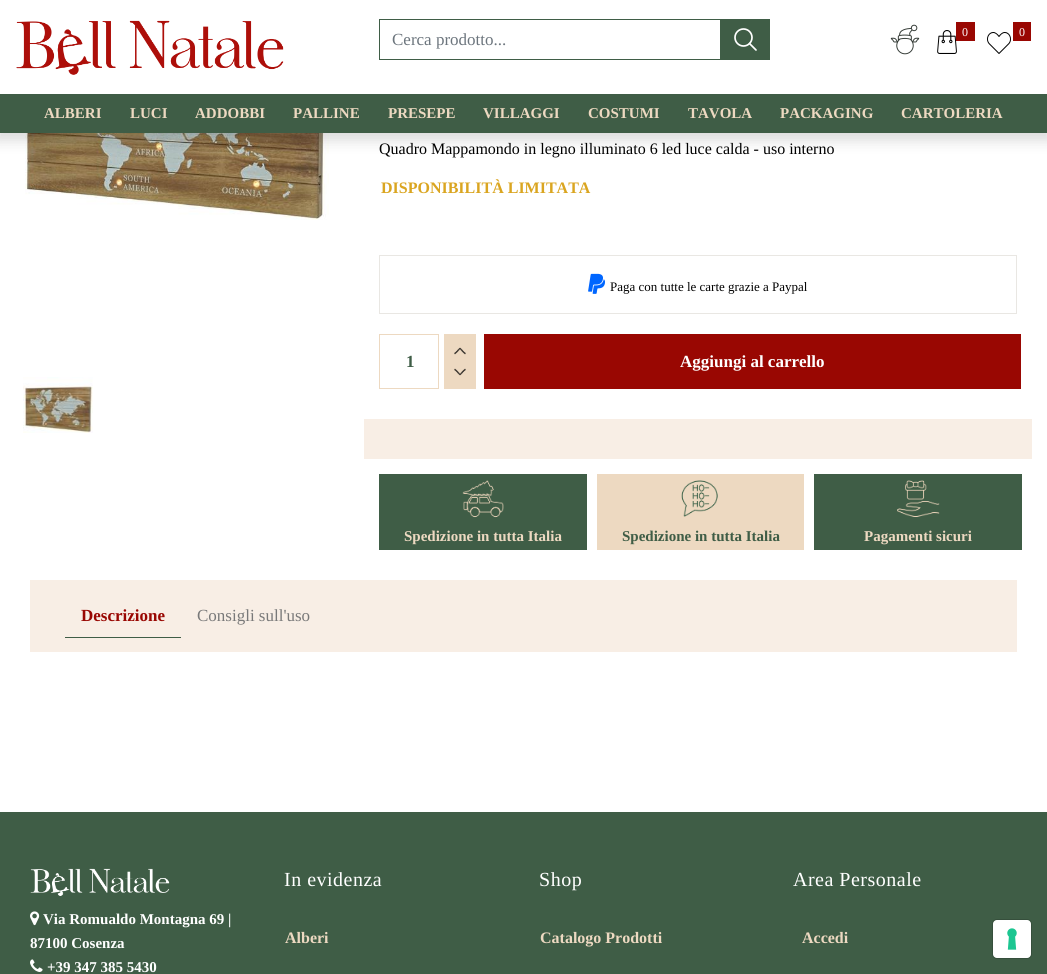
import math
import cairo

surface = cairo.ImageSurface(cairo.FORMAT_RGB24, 1047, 974)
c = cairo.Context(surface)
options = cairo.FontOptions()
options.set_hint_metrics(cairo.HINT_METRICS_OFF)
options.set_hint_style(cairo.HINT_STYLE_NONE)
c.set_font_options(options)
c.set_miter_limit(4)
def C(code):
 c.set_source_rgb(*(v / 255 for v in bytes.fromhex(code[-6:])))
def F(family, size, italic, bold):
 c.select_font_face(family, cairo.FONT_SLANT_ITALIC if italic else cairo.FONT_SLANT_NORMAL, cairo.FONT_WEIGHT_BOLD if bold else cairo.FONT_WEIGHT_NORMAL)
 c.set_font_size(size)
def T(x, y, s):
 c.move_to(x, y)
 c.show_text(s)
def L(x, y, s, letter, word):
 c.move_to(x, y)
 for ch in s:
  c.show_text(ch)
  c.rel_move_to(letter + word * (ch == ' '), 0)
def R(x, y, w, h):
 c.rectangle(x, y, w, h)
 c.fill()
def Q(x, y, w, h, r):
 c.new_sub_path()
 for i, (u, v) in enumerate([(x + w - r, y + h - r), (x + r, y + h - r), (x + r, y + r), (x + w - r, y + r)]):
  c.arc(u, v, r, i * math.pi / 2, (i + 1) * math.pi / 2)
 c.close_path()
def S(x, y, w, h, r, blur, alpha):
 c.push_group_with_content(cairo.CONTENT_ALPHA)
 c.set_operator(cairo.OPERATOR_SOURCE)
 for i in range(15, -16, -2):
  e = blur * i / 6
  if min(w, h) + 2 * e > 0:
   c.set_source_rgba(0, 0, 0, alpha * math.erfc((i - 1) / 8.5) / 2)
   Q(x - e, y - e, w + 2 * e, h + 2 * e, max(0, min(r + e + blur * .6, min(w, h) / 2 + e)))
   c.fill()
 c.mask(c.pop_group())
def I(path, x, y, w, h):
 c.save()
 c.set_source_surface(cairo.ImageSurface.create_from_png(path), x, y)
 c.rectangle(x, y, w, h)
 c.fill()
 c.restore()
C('ffffff')
c.paint()
I('5.png',25,133,304,87)
C('000000')
S(-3,1,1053,139,0,7.5,.15)
C('ffffff')
R(0,0,1047,94)
I('1.png',16,20,268,55)
C('3f5d46')
R(379,19,341,1)
R(379,59,341,1)
R(379,19,1,41)
F('Liberation Serif',17,0,0)
C('6c757d')
T(392,45,'Cerca prodotto...')
C('3f5d46')
R(720,19,50,41)
c.new_path()
c.arc(743.5,37.5,8.5,0,2 * math.pi)
C('ffffff')
c.set_line_width(1.7)
c.stroke()
c.new_path()
c.move_to(756,50)
c.line_to(749.5,43.5)
c.set_line_cap(cairo.LINE_CAP_ROUND)
c.set_line_join(cairo.LINE_JOIN_ROUND)
c.stroke()
I('2.png',890,24,30,31)
I('3.png',937,30,20,24)
C('990702')
R(956,22,19,19)
F('Liberation Serif',12,0,0)
C('ffffff')
T(962,36,'0')
I('4.png',987,32,24,22)
C('990702')
R(1013,22,18,19)
C('ffffff')
T(1019,36,'0')
C('3f5d46')
R(0,94,1047,39)
F('Liberation Serif',15,0,1)
C('edd9c1')
T(44,118,'ALBERI')
T(130,118,'LUCI')
T(195,118,'ADDOBBI')
T(293,118,'PALLINE')
T(388,118,'PRESEPE')
T(483,118,'VILLAGGI')
T(588,118,'COSTUMI')
T(688,118,'TAVOLA')
T(780,118,'PACKAGING')
T(901,118,'CARTOLERIA')
I('6.png',23,377,70,56)
F('Liberation Serif',16,0,0)
C('000000')
T(379,154,'Quadro Mappamondo in legno illuminato 6 led luce calda - uso interno')
F('Liberation Serif',16,0,1)
C('daa520')
T(381,193,'DISPONIBILITÀ LIMITATA')
c.rectangle(379.5,255.5,637,58)
C('e9e7e3')
c.set_line_width(1)
c.set_line_cap(cairo.LINE_CAP_BUTT)
c.set_line_join(cairo.LINE_JOIN_MITER)
c.stroke()
I('7.png',588,273,17,21)
F('Liberation Serif',13,0,0)
C('000000')
T(610,291,'Paga con tutte le carte grazie a Paypal')
C('edd9c1')
R(444,334,32,55)
I('8.png',454,368,12,8)
I('9.png',454,347,12,8)
c.rectangle(379.5,334.5,59,54)
c.stroke()
F('Liberation Serif',17,0,1)
C('3f5d46')
T(406,367,'1')
C('990702')
R(484,334,537,55)
C('ffffff')
T(680,367,'Aggiungi al carrello')
C('f8eee5')
R(364,419,668,40)
C('3f5d46')
R(379,474,208,76)
I('10.png',462,480,42,38)
F('Liberation Serif',15,0,1)
C('edd9c1')
T(404,541,'Spedizione in tutta Italia')
R(597,474,207,76)
I('11.png',681,480,37,37)
C('3f5d46')
T(622,541,'Spedizione in tutta Italia')
R(814,474,208,76)
I('12.png',897,480,43,37)
C('edd9c1')
T(864,541,'Pagamenti sicuri')
C('f8eee5')
R(30,580,987,72)
C('3f5d46')
R(65,637,116,1)
F('Liberation Serif',17,0,1)
C('990702')
T(81,621,'Descrizione')
F('Liberation Serif',17,0,0)
C('797979')
T(197,621,'Consigli sull\'uso')
C('3f5d46')
R(0,812,1047,162)
I('13.png',30,868,140,28)
I('14.png',30,911,10,15)
F('Liberation Serif',15,0,1)
C('ffffff')
T(43,924,'Via Romualdo Montagna 69 |')
T(30,948,'87100 Cosenza')
I('15.png',30,959,13,13)
T(47,972,'+39 347 385 5430')
F('Liberation Serif',20,0,0)
L(284,886,'In evidenza',.5,0)
F('Liberation Serif',16,0,1)
C('edd9c1')
T(285,943,'Alberi')
F('Liberation Serif',20,0,0)
C('ffffff')
L(539,886,'Shop',.5,0)
F('Liberation Serif',16,0,1)
C('edd9c1')
T(540,943,'Catalogo Prodotti')
F('Liberation Serif',20,0,0)
C('ffffff')
L(793,886,'Area Personale',.5,0)
F('Liberation Serif',16,0,1)
C('edd9c1')
T(802,943,'Accedi')
Q(992.5,919.5,39,39,4.5)
C('364f3c')
c.stroke()
C('ffffff')
Q(993,920,38,38,4)
c.fill()
I('16.png',1007,928,10,22)
surface.write_to_png('o.png')
